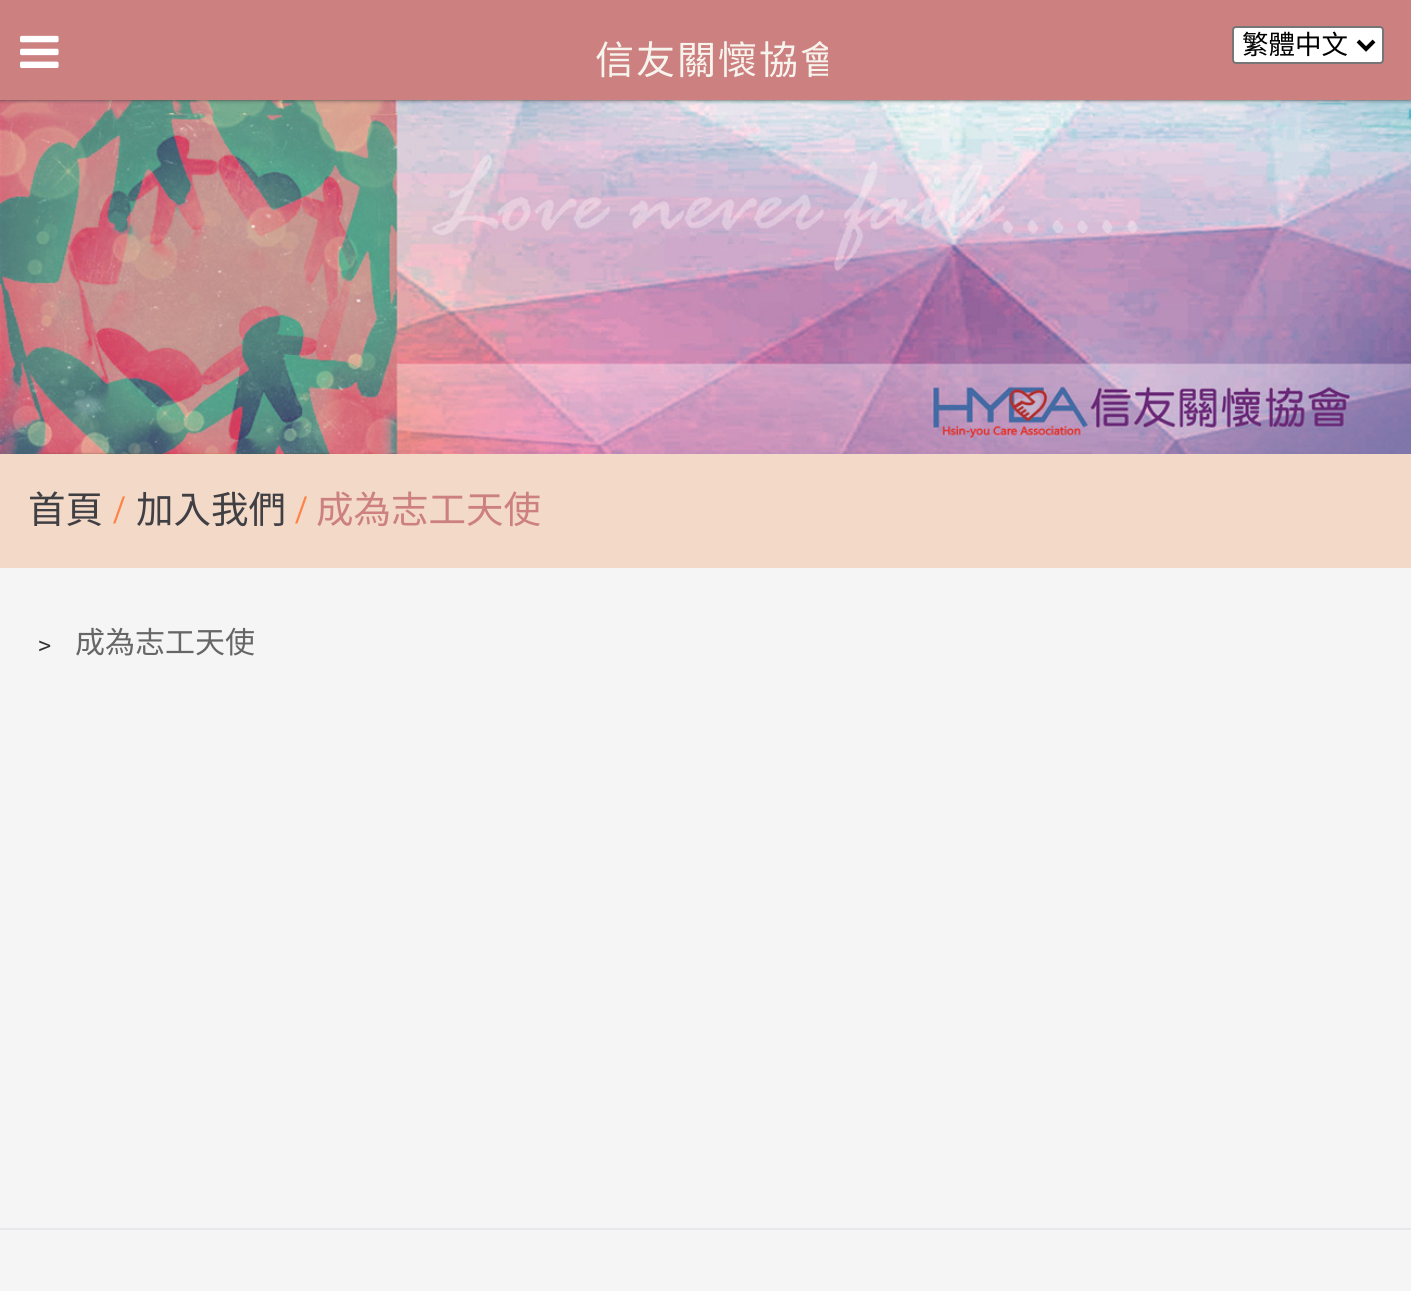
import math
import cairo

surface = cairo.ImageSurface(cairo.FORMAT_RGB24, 1411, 1291)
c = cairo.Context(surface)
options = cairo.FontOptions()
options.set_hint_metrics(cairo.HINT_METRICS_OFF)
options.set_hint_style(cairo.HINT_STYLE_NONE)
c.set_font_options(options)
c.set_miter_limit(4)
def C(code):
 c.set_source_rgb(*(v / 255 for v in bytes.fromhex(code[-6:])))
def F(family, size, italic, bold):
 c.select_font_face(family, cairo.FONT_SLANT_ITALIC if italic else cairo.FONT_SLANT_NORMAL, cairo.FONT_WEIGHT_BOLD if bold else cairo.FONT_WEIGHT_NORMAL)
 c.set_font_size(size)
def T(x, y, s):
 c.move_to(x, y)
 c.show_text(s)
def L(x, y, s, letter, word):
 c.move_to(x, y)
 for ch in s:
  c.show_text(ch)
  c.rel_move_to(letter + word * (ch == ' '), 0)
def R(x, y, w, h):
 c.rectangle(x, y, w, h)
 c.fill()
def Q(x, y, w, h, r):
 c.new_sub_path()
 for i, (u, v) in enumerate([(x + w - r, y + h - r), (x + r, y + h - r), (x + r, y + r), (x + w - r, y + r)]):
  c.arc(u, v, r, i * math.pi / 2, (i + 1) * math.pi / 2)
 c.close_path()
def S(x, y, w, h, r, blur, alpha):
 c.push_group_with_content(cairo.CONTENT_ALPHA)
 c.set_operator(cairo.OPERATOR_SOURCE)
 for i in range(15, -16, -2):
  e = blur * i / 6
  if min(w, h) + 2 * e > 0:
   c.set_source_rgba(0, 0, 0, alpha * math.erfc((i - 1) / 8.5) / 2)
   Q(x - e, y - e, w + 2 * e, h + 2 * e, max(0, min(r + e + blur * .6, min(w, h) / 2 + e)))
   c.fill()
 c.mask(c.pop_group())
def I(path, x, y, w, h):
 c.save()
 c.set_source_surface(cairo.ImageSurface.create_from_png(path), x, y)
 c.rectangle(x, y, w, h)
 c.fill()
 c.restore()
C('f5f5f5')
c.paint()
I('1.png',0,100,1411,354)
C('3f3f44')
S(0,0,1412,100,0,2,1)
C('cc8080')
R(0,0,1411,100)
c.save()
c.rectangle(582,30,246,58)
c.clip()
F('Noto Sans TC',39,0,0)
C('f7f4ee')
L(595,74,'信友關懷協會',2,0)
c.restore()
C('f3d9c8')
R(0,454,1411,114)
F('Noto Sans TC',37.5,0,0)
C('3f3f44')
T(28,523,'首頁')
F('Cardo',37.5,0,0)
C('fd8348')
T(113,523,'/')
F('Noto Sans TC',37.5,0,0)
C('3f3f44')
T(136,523,'加入我們')
F('Cardo',37.5,0,0)
C('fd8348')
T(295,523,'/')
F('Noto Sans TC',37.5,0,0)
C('cc8080')
T(316,523,'成為志工天使')
F('Noto Sans TC',30,0,0)
C('333333')
T(30,653,'﹥')
C('666666')
T(75,653,'成為志工天使')
I('2.png',20,35,39,33)
C('ffffff')
Q(1233,27,150,36,3)
c.fill_preserve()
C('767676')
c.stroke()
c.new_path()
c.move_to(1358,41)
c.line_to(1366,49)
c.line_to(1374,41)
C('000000')
c.set_line_width(4)
c.stroke()
F('Noto Sans CJK TC',26.5,0,0)
T(1242,54,'繁體中文')
C('e7e7ec')
R(0,1228,1411,2)
surface.write_to_png('o.png')
